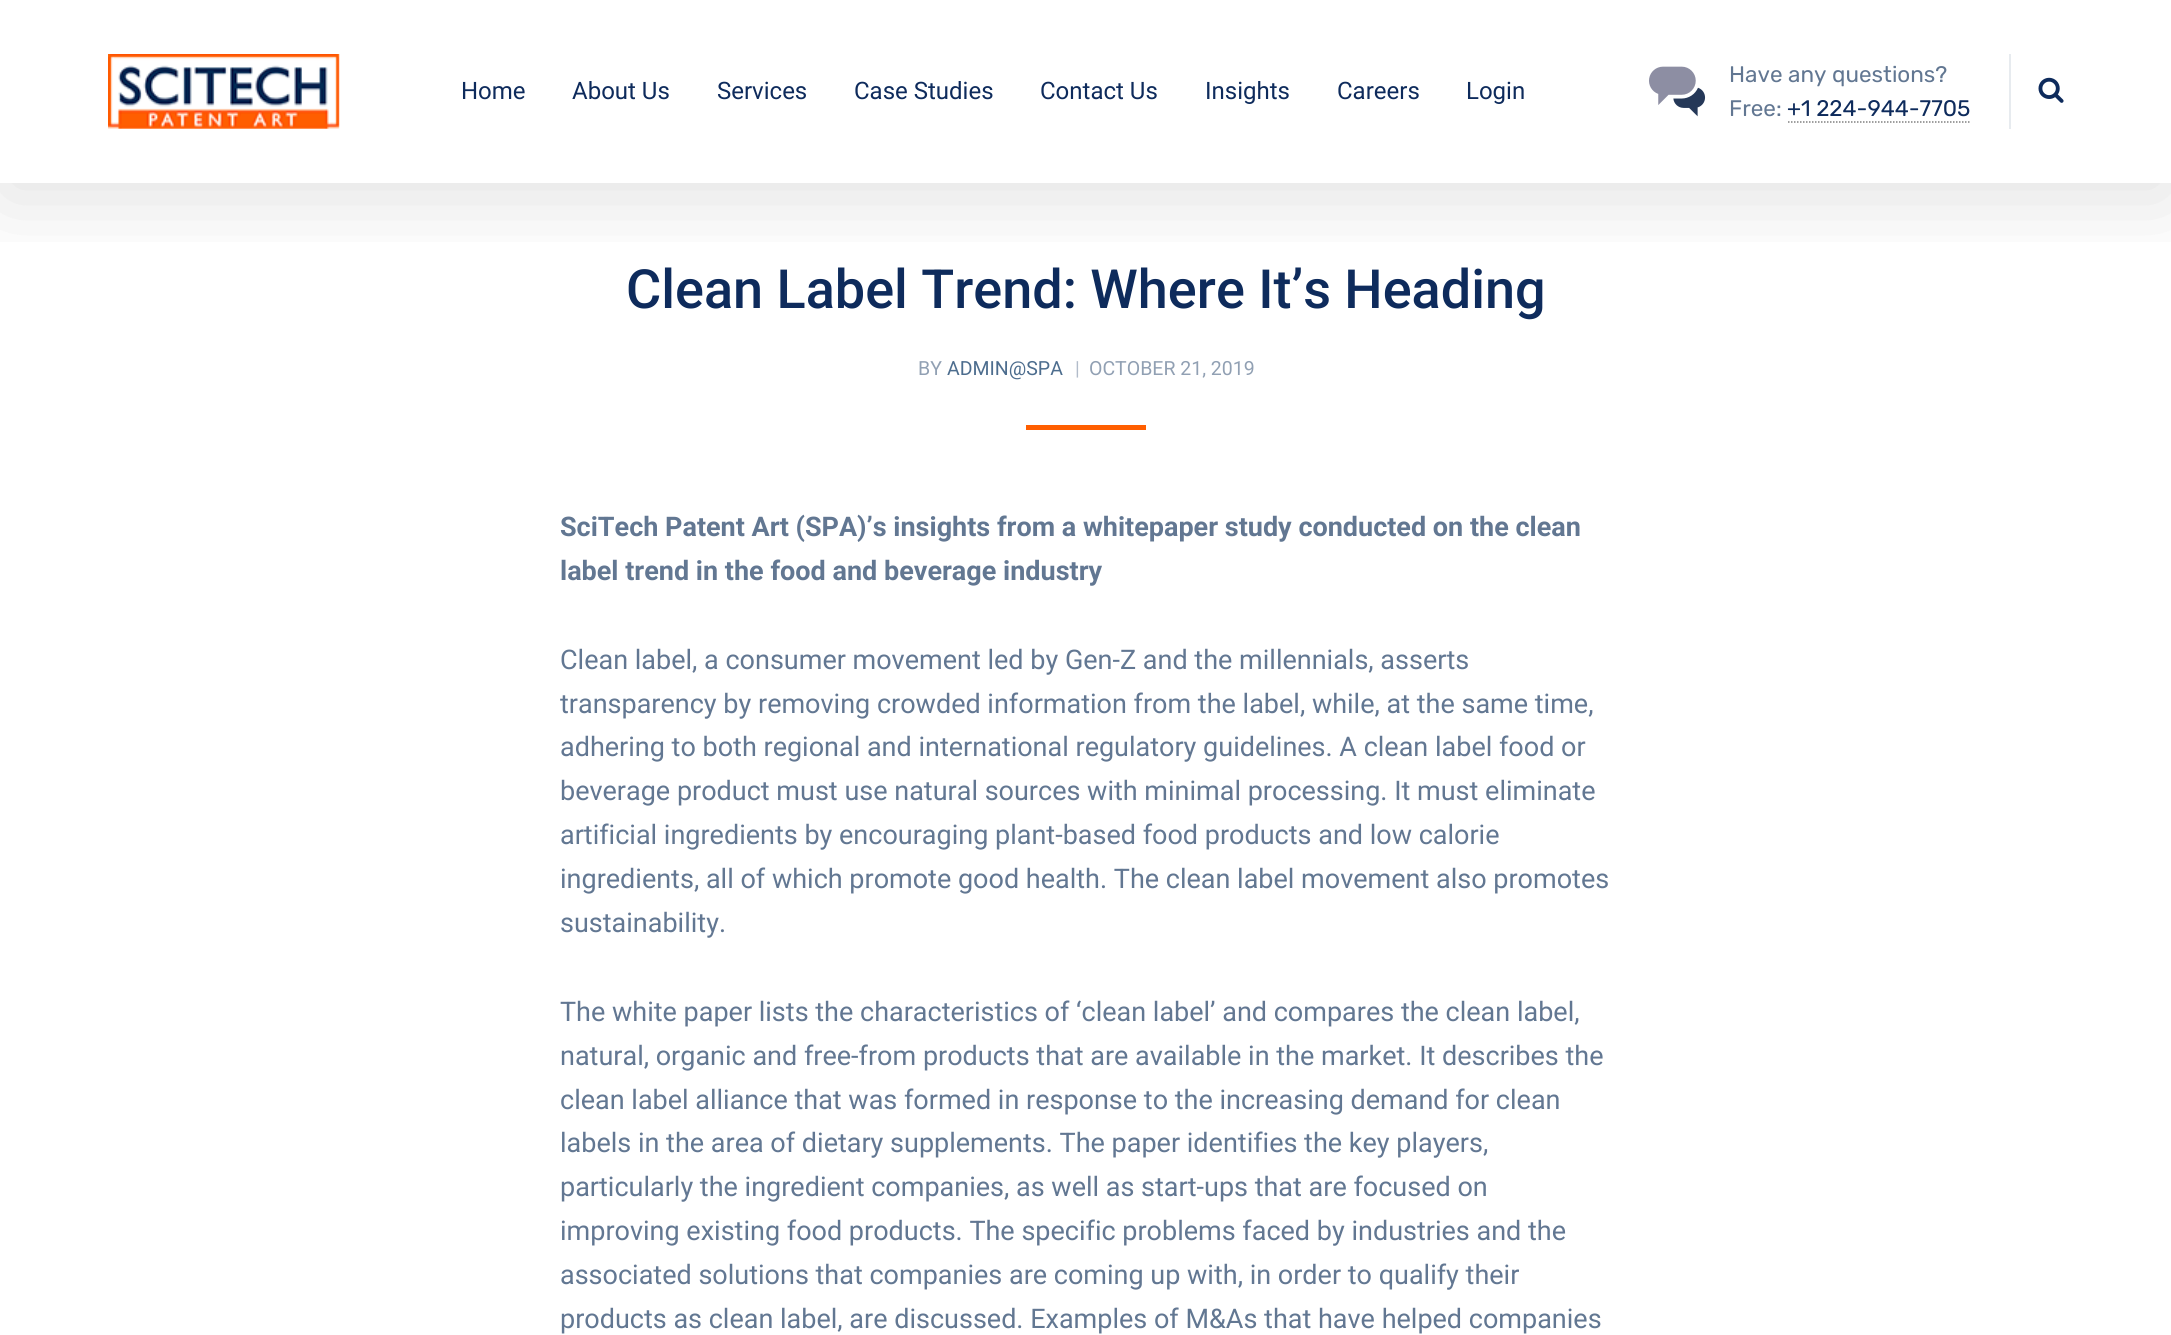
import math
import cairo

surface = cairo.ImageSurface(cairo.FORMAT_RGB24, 2171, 1335)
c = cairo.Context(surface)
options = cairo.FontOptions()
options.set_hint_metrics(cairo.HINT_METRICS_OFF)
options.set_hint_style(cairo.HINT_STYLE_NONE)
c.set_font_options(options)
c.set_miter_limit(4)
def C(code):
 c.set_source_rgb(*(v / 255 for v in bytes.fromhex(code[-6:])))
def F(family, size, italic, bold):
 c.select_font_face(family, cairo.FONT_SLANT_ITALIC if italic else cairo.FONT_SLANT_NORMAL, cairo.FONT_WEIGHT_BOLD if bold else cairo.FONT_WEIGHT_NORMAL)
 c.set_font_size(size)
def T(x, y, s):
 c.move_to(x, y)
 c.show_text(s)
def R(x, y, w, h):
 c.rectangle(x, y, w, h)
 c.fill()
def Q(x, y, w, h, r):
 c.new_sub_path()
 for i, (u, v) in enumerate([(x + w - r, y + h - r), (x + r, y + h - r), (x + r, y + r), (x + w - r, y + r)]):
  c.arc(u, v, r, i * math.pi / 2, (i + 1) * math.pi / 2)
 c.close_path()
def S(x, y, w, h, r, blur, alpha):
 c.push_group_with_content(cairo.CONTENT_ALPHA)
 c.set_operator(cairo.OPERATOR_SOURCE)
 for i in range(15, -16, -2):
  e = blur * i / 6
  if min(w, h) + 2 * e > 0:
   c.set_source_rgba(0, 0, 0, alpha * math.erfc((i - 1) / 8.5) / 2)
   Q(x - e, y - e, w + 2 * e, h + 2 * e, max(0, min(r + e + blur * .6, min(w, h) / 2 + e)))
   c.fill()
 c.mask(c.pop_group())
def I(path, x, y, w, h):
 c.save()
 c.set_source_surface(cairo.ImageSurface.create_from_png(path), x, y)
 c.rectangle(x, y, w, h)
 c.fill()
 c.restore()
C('ffffff')
c.paint()
c.save()
c.rectangle(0,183,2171,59)
c.clip()
C('000000')
S(0,15,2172,183,0,45,.12)
c.restore()
I('1.png',108,54,232,75)
F('Roboto',24,0,0)
C('0e2b5c')
T(461,99,'Home')
T(572,99,'About Us')
T(717,99,'Services')
T(854,99,'Case Studies')
T(1040,99,'Contact Us')
T(1205,99,'Insights')
T(1337,99,'Careers')
T(1466,99,'Login')
I('2.png',1649,66,57,51)
F('Rubik',22.5,0,0)
C('627792')
T(1729,82,'Have any questions?')
T(1729,116,'Free:')
C('0e2b5c')
T(1787,116,'+1 224-944-7705')
c.new_path()
c.move_to(1788,122)
c.line_to(1971,122)
C('808080')
c.set_line_width(1.5)
c.set_dash([1.5,1.5])
c.stroke()
C('e7ebef')
R(2009,54,2,75)
I('3.png',2038,77,26,26)
F('Roboto Medium',54,0,0)
C('0e2b5c')
T(626,308,'Clean Label Trend: Where It’s Heading')
F('Roboto',19.5,0,0)
C('91a0b3')
T(918,375,'BY')
C('4d6d8e')
T(947,375,'ADMIN@SPA')
C('b2bcca')
T(1075,375,'|')
C('91a0b3')
T(1089,375,'OCTOBER 21, 2019')
C('ff5e00')
R(1026,425,120,5)
F('Roboto',27,0,1)
C('627792')
T(560,536,'SciTech Patent Art (SPA)’s insights from a whitepaper study conducted on the clean')
T(560,580,'label trend in the food and beverage industry')
F('Roboto',27,0,0)
T(560,669,'Clean label, a consumer movement led by Gen-Z and the millennials, asserts')
T(560,713,'transparency by removing crowded information from the label, while, at the same time,')
T(560,756,'adhering to both regional and international regulatory guidelines. A clean label food or')
T(560,800,'beverage product must use natural sources with minimal processing. It must eliminate')
T(560,844,'artificial ingredients by encouraging plant-based food products and low calorie')
T(560,888,'ingredients, all of which promote good health. The clean label movement also promotes')
T(560,932,'sustainability.')
T(560,1021,'The white paper lists the characteristics of ‘clean label’ and compares the clean label,')
T(560,1065,'natural, organic and free-from products that are available in the market. It describes the')
T(560,1109,'clean label alliance that was formed in response to the increasing demand for clean')
T(560,1152,'labels in the area of dietary supplements. The paper identifies the key players,')
T(560,1196,'particularly the ingredient companies, as well as start-ups that are focused on')
T(560,1240,'improving existing food products. The specific problems faced by industries and the')
T(560,1284,'associated solutions that companies are coming up with, in order to qualify their')
T(560,1328,'products as clean label, are discussed. Examples of M&As that have helped companies')
surface.write_to_png('o.png')
